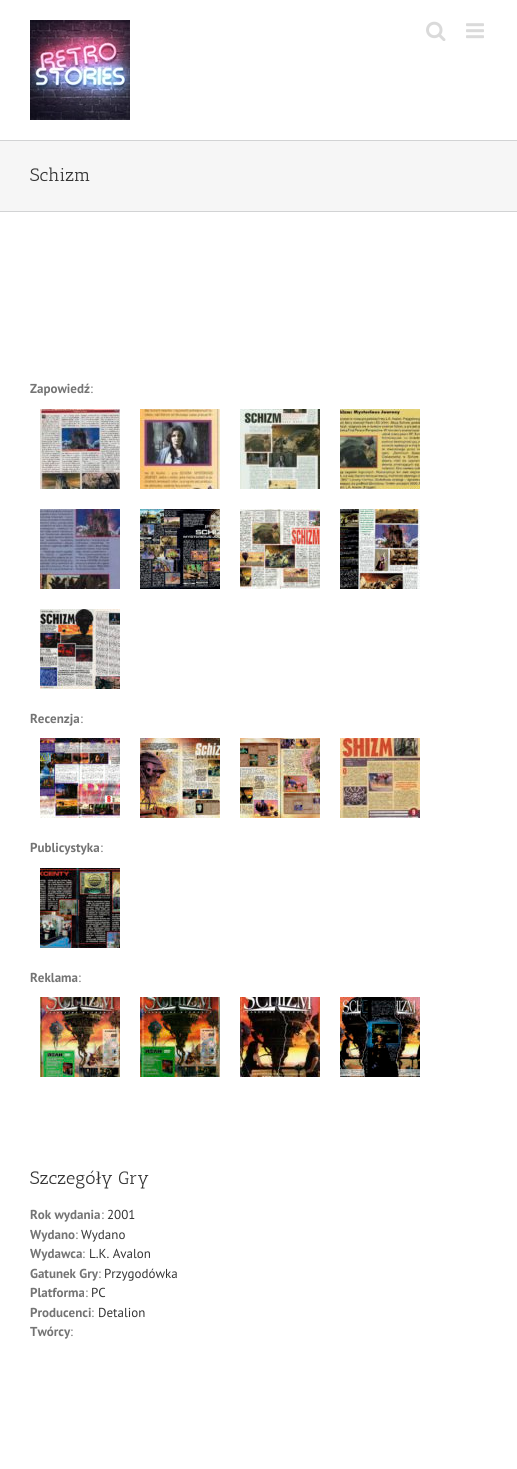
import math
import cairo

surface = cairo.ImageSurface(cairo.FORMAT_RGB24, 517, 1469)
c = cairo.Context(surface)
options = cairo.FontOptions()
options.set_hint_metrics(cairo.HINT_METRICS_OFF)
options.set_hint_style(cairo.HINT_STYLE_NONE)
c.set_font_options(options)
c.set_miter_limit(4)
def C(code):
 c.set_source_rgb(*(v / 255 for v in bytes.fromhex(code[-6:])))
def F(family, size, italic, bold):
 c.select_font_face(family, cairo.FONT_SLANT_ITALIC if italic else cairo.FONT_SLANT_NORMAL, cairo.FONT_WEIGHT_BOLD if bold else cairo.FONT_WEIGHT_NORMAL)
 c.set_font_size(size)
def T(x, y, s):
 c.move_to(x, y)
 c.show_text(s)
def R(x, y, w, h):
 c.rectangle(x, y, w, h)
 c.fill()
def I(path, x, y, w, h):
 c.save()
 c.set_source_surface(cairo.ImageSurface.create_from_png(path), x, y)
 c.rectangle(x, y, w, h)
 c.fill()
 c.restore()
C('ffffff')
c.paint()
I('1.png',30,20,100,100)
I('2.png',426,21,20,20)
I('3.png',466,23,18,16)
C('f6f6f6')
R(0,141,517,70)
C('d2d3d4')
R(0,140,517,1)
R(0,211,517,1)
F('Antic Slab',18,0,0)
C('333333')
T(30,181,'Schizm')
F('PT Sans',13,0,1)
C('747474')
T(30,393,'Zapowiedź')
F('PT Sans',13,0,0)
T(90,393,':')
I('4.png',40,409,80,80)
I('5.png',140,409,80,80)
I('6.png',240,409,80,80)
I('7.png',340,409,80,80)
I('8.png',40,509,80,80)
I('9.png',140,509,80,80)
I('10.png',240,509,80,80)
I('11.png',340,509,80,80)
I('12.png',40,609,80,80)
F('PT Sans',13,0,1)
T(30,723,'Recenzja')
F('PT Sans',13,0,0)
T(80,723,':')
I('13.png',40,738,80,80)
I('14.png',140,738,80,80)
I('15.png',240,738,80,80)
I('16.png',340,738,80,80)
F('PT Sans',13,0,1)
T(30,852,'Publicystyka')
F('PT Sans',13,0,0)
T(100,852,':')
I('17.png',40,868,80,80)
F('PT Sans',13,0,1)
T(30,982,'Reklama')
F('PT Sans',13,0,0)
T(78,982,':')
I('18.png',40,997,80,80)
I('19.png',140,997,80,80)
I('20.png',240,997,80,80)
I('21.png',340,997,80,80)
F('Antic Slab',18,0,0)
C('333333')
T(30,1184,'Szczegó')
F('Liberation Serif',18,0,0)
T(96,1184,'ł')
F('Antic Slab',18,0,0)
T(101,1184,'y Gry')
F('PT Sans',13,0,1)
C('747474')
T(30,1219,'Rok wydania')
F('PT Sans',13,0,0)
T(101,1219,':')
C('333333')
T(107,1219,'2001')
F('PT Sans',13,0,1)
C('747474')
T(30,1239,'Wydano')
F('PT Sans',13,0,0)
T(75,1239,':')
C('333333')
T(81,1239,'Wydano')
F('PT Sans',13,0,1)
C('747474')
T(30,1258,'Wydawca')
F('PT Sans',13,0,0)
T(82,1258,':')
C('333333')
T(89,1258,'L.K. Avalon')
F('PT Sans',13,0,1)
C('747474')
T(30,1278,'Gatunek Gry')
F('PT Sans',13,0,0)
T(98,1278,':')
C('333333')
T(104,1278,'Przygodówka')
F('PT Sans',13,0,1)
C('747474')
T(30,1297,'Platforma')
F('PT Sans',13,0,0)
T(85,1297,':')
C('333333')
T(91,1297,'PC')
F('PT Sans',13,0,1)
C('747474')
T(30,1317,'Producenci')
F('PT Sans',13,0,0)
T(91,1317,':')
C('333333')
T(98,1317,'Detalion')
F('PT Sans',13,0,1)
C('747474')
T(30,1336,'Twórcy')
F('PT Sans',13,0,0)
T(70,1336,':')
surface.write_to_png('o.png')
